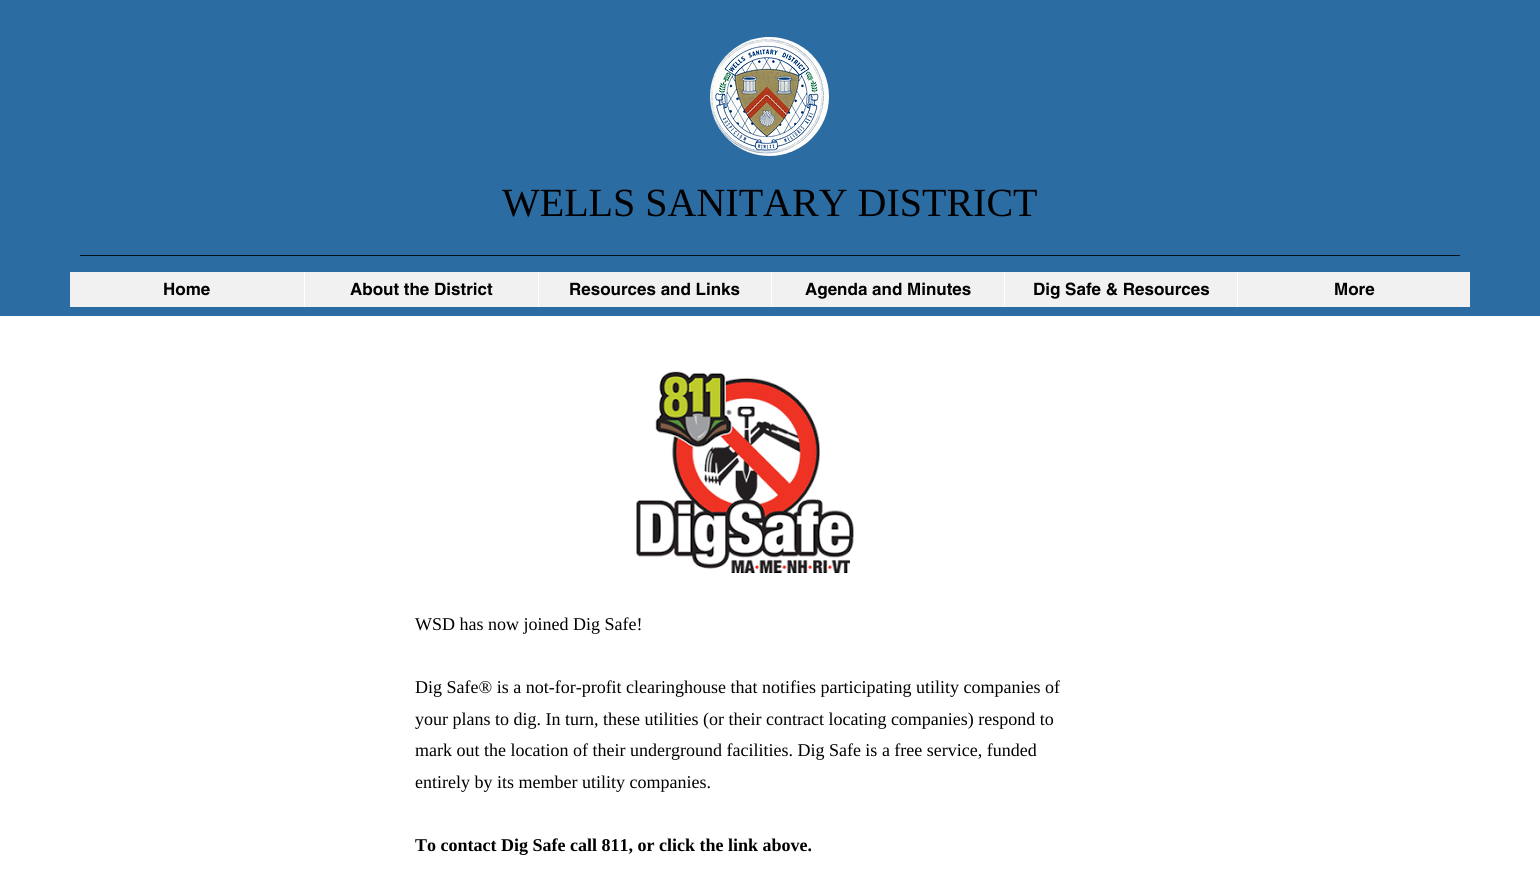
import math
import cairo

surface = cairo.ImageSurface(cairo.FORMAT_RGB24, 1540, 893)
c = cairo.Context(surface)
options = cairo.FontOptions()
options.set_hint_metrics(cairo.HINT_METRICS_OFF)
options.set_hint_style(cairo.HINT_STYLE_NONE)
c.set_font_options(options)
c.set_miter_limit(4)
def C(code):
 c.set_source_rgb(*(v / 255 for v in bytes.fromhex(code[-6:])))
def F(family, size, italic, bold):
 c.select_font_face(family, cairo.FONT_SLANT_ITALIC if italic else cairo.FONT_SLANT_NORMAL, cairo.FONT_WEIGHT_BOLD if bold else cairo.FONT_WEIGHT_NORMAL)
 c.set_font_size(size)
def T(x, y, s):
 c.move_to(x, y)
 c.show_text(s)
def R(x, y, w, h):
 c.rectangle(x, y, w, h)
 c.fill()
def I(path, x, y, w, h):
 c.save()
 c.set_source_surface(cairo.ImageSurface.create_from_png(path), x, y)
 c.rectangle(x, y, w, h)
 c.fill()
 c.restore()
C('ffffff')
c.paint()
C('2b6ca3')
R(0,0,1540,316)
I('1.png',710,37,119,119)
F('Liberation Serif',40,0,0)
C('000000')
T(502,216,'WELLS SANITARY DISTRICT')
C('061018')
R(80,255,1380,1)
C('f1f1f1')
R(70,272,1400,35)
F('helvetica',17,0,1)
C('000000')
T(163,295,'Home')
C('ffffff')
R(304,272,1,35)
C('000000')
T(350,295,'About the District')
C('ffffff')
R(538,272,1,35)
C('000000')
T(569,295,'Resources and Links')
C('ffffff')
R(771,272,1,35)
C('000000')
T(805,295,'Agenda and Minutes')
C('ffffff')
R(1004,272,1,35)
C('000000')
T(1033,295,'Dig Safe & Resources')
C('ffffff')
R(1237,272,1,35)
C('000000')
T(1334,295,'More')
I('2.png',636,371,218,202)
F('Liberation Serif',18,0,0)
T(415,630,'WSD has now joined Dig Safe!')
T(415,693,'Dig Safe® is a not-for-profit clearinghouse that notifies participating utility companies of')
T(415,725,'your plans to dig. In turn, these utilities (or their contract locating companies) respond to')
T(415,756,'mark out the location of their underground facilities. Dig Safe is a free service, funded')
T(415,788,'entirely by its member utility companies.')
F('Liberation Serif',18,0,1)
T(415,851,'To contact Dig Safe call 811, or click the link above.')
surface.write_to_png('o.png')
